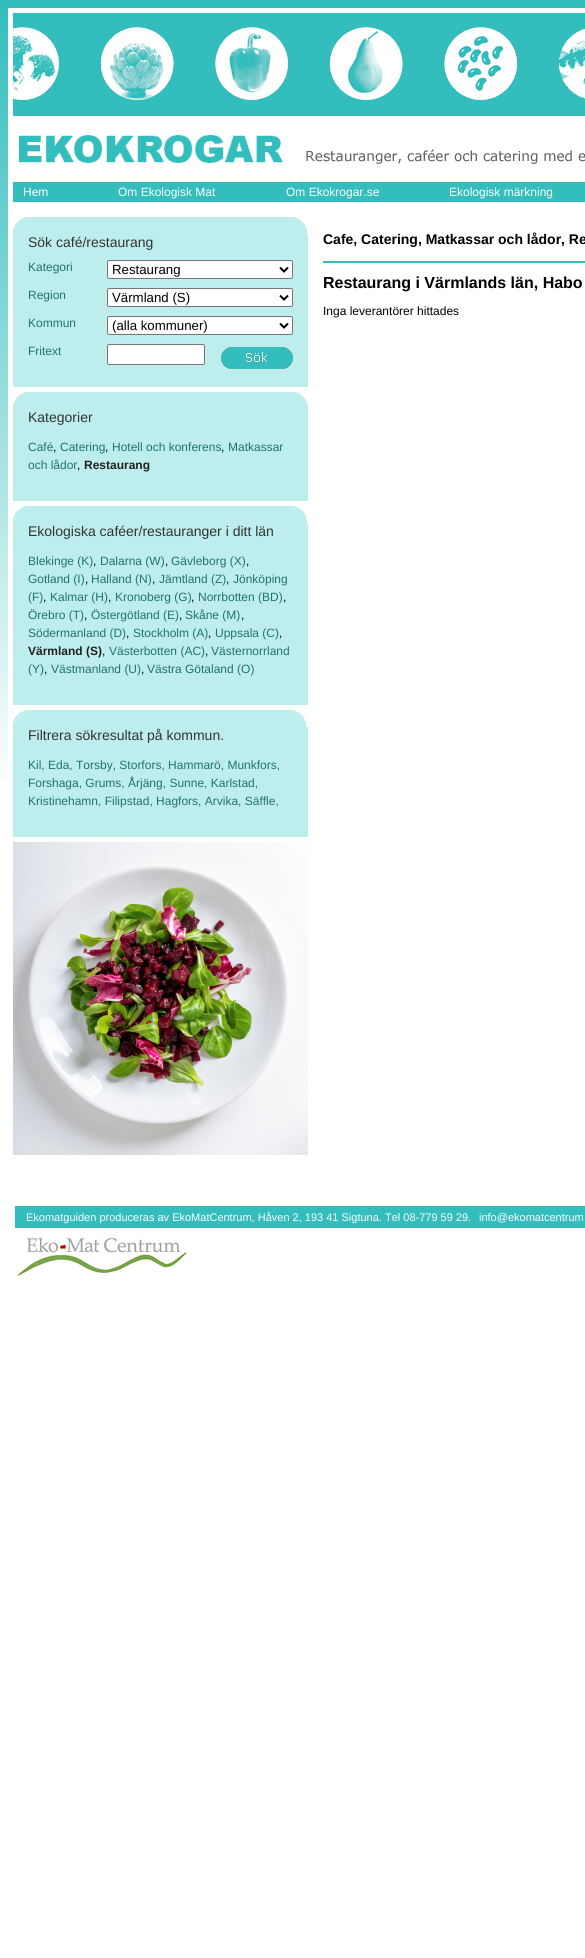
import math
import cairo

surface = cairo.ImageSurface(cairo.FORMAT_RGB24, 585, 1958)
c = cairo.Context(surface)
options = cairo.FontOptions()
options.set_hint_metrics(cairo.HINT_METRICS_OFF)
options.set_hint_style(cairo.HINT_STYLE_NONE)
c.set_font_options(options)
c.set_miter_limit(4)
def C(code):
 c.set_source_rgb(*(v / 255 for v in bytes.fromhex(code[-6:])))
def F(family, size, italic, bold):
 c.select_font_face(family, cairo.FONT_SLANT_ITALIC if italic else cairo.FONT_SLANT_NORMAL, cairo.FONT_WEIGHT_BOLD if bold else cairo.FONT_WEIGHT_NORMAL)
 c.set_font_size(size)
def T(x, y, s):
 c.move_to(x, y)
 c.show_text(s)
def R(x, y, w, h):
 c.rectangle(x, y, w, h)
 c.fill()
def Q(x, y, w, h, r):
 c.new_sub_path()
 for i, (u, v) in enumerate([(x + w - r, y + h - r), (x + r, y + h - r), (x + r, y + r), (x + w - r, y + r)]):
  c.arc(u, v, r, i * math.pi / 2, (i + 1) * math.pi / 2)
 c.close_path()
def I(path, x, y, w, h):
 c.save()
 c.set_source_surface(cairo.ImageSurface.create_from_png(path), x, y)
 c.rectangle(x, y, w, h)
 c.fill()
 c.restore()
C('ffffff')
c.paint()
I('1.png',0,0,585,782)
C('ffffff')
R(8,8,577,774)
I('2.png',13,13,572,103)
I('3.png',19,135,566,29)
C('33bdbd')
R(13,182,572,20)
F('Liberation Sans',12,0,0)
C('ffffff')
T(23,196,'Hem')
T(118,196,'Om Ekologisk Mat')
T(286,196,'Om Ekokrogar.se')
T(449,196,'Ekologisk märkning')
C('bdeeed')
R(13,217,277,17)
I('4.png',13,217,13,13)
I('5.png',290,217,17,17)
R(13,234,295,153)
F('Liberation Sans',14,0,0)
C('333333')
T(28,247,'Sök café/restaurang')
F('Liberation Sans',12,0,0)
C('1f7371')
T(28,271,'Kategori')
C('ffffff')
Q(107.5,260.5,185,18,1.5)
c.fill_preserve()
C('767676')
c.set_line_width(1)
c.stroke()
c.new_path()
c.move_to(280,267.5)
c.line_to(284,271.5)
c.line_to(288,267.5)
C('000000')
c.set_line_width(2)
c.stroke()
F('Liberation Sans',13.25,0,0)
T(112,274,'Restaurang')
F('Liberation Sans',12,0,0)
C('1f7371')
T(28,299,'Region')
C('ffffff')
Q(107.5,288.5,185,18,1.5)
c.fill_preserve()
C('767676')
c.set_line_width(1)
c.stroke()
c.new_path()
c.move_to(280,295.5)
c.line_to(284,299.5)
c.line_to(288,295.5)
C('000000')
c.set_line_width(2)
c.stroke()
F('Liberation Sans',13.25,0,0)
T(112,302,'Värmland (S)')
F('Liberation Sans',12,0,0)
C('1f7371')
T(28,327,'Kommun')
C('ffffff')
Q(107.5,316.5,185,18,1.5)
c.fill_preserve()
C('767676')
c.set_line_width(1)
c.stroke()
c.new_path()
c.move_to(280,323.5)
c.line_to(284,327.5)
c.line_to(288,323.5)
C('000000')
c.set_line_width(2)
c.stroke()
F('Liberation Sans',13.25,0,0)
T(112,330,'(alla kommuner)')
F('Liberation Sans',12,0,0)
C('1f7371')
T(28,355,'Fritext')
C('ffffff')
Q(107.5,344.5,97,20,1.5)
c.fill_preserve()
C('767676')
c.set_line_width(1)
c.stroke()
I('6.png',221,347,72,22)
C('bdeeed')
R(13,392,295,109)
I('4.png',13,392,13,13)
I('7.png',294,392,14,14)
F('Liberation Sans',14,0,0)
C('333333')
T(28,422,'Kategorier')
F('Liberation Sans',12,0,0)
C('1f7371')
T(28,451,'Café')
C('000000')
T(53,451,',')
C('1f7371')
T(60,451,'Catering')
C('000000')
T(105,451,',')
C('1f7371')
T(112,451,'Hotell och konferens')
C('000000')
T(221,451,',')
C('1f7371')
T(228,451,'Matkassar')
T(28,469,'och lådor')
C('000000')
T(77,469,',')
F('Liberation Sans',12,0,1)
C('202020')
T(84,469,'Restaurang')
C('bdeeed')
R(13,506,277,17)
I('4.png',13,506,13,13)
I('5.png',290,506,17,17)
R(13,523,295,182)
F('Liberation Sans',14,0,0)
C('333333')
T(28,536,'Ekologiska caféer/restauranger i ditt län')
F('Liberation Sans',12,0,0)
C('1f7371')
T(28,565,'Blekinge (K)')
C('000000')
T(93,565,',')
C('1f7371')
T(100,565,'Dalarna (W)')
C('000000')
T(165,565,',')
C('1f7371')
T(171,565,'Gävleborg (X)')
C('000000')
T(246,565,',')
C('1f7371')
T(28,583,'Gotland (I)')
C('000000')
T(85,583,',')
C('1f7371')
T(91,583,'Halland (N)')
C('000000')
T(152,583,',')
C('1f7371')
T(159,583,'Jämtland (Z)')
C('000000')
T(226,583,',')
C('1f7371')
T(233,583,'Jönköping')
T(28,601,'(F)')
C('000000')
T(43,601,',')
C('1f7371')
T(50,601,'Kalmar (H)')
C('000000')
T(108,601,',')
C('1f7371')
T(115,601,'Kronoberg (G)')
C('000000')
T(191,601,',')
C('1f7371')
T(198,601,'Norrbotten (BD)')
C('000000')
T(283,601,',')
C('1f7371')
T(28,619,'Örebro (T)')
C('000000')
T(84,619,',')
C('1f7371')
T(91,619,'Östergötland (E)')
C('000000')
T(179,619,',')
C('1f7371')
T(185,619,'Skåne (M)')
C('000000')
T(241,619,',')
C('1f7371')
T(28,637,'Södermanland (D)')
C('000000')
T(126,637,',')
C('1f7371')
T(133,637,'Stockholm (A)')
C('000000')
T(208,637,',')
C('1f7371')
T(215,637,'Uppsala (C)')
C('000000')
T(279,637,',')
F('Liberation Sans',12,0,1)
C('202020')
T(28,655,'Värmland (S)')
F('Liberation Sans',12,0,0)
C('000000')
T(102,655,',')
C('1f7371')
T(109,655,'Västerbotten (AC)')
C('000000')
T(205,655,',')
C('1f7371')
T(211,655,'Västernorrland')
T(28,673,'(Y)')
C('000000')
T(44,673,',')
C('1f7371')
T(51,673,'Västmanland (U)')
C('000000')
T(141,673,',')
C('1f7371')
T(147,673,'Västra Götaland (O)')
C('bdeeed')
R(13,710,276,17)
I('4.png',13,710,13,13)
I('5.png',289,710,17,17)
R(13,727,295,110)
F('Liberation Sans',14,0,0)
C('333333')
T(28,740,'Filtrera sökresultat på kommun.')
F('Liberation Sans',12,0,0)
C('1f7371')
T(28,769,'Kil, Eda, Torsby, Storfors, Hammarö, Munkfors,')
T(28,787,'Forshaga, Grums, Årjäng, Sunne, Karlstad,')
T(28,805,'Kristinehamn, Filipstad, Hagfors, Arvika, Säffle,')
I('8.png',13,842,295,313)
C('33bdbd')
R(323,261,262,2)
F('Liberation Sans',14,0,1)
C('000000')
T(323,244,'Cafe, Catering, Matkassar och lådor, Re')
F('Liberation Sans',16,0,1)
T(323,288,'Restaurang i Värmlands län, Habo')
F('Liberation Sans',12,0,0)
T(323,315,'Inga leverantörer hittades')
C('33bdbd')
R(15,1206,570,22)
F('Liberation Sans',11,0,0)
C('ffffff')
T(26,1221,'Ekomatguiden produceras av EkoMatCentrum, Håven 2, 193 41 Sigtuna. Tel 08-779 59 29.')
T(479,1221,'info@ekomatcentrum')
I('9.png',18,1237,169,39)
surface.write_to_png('o.png')
